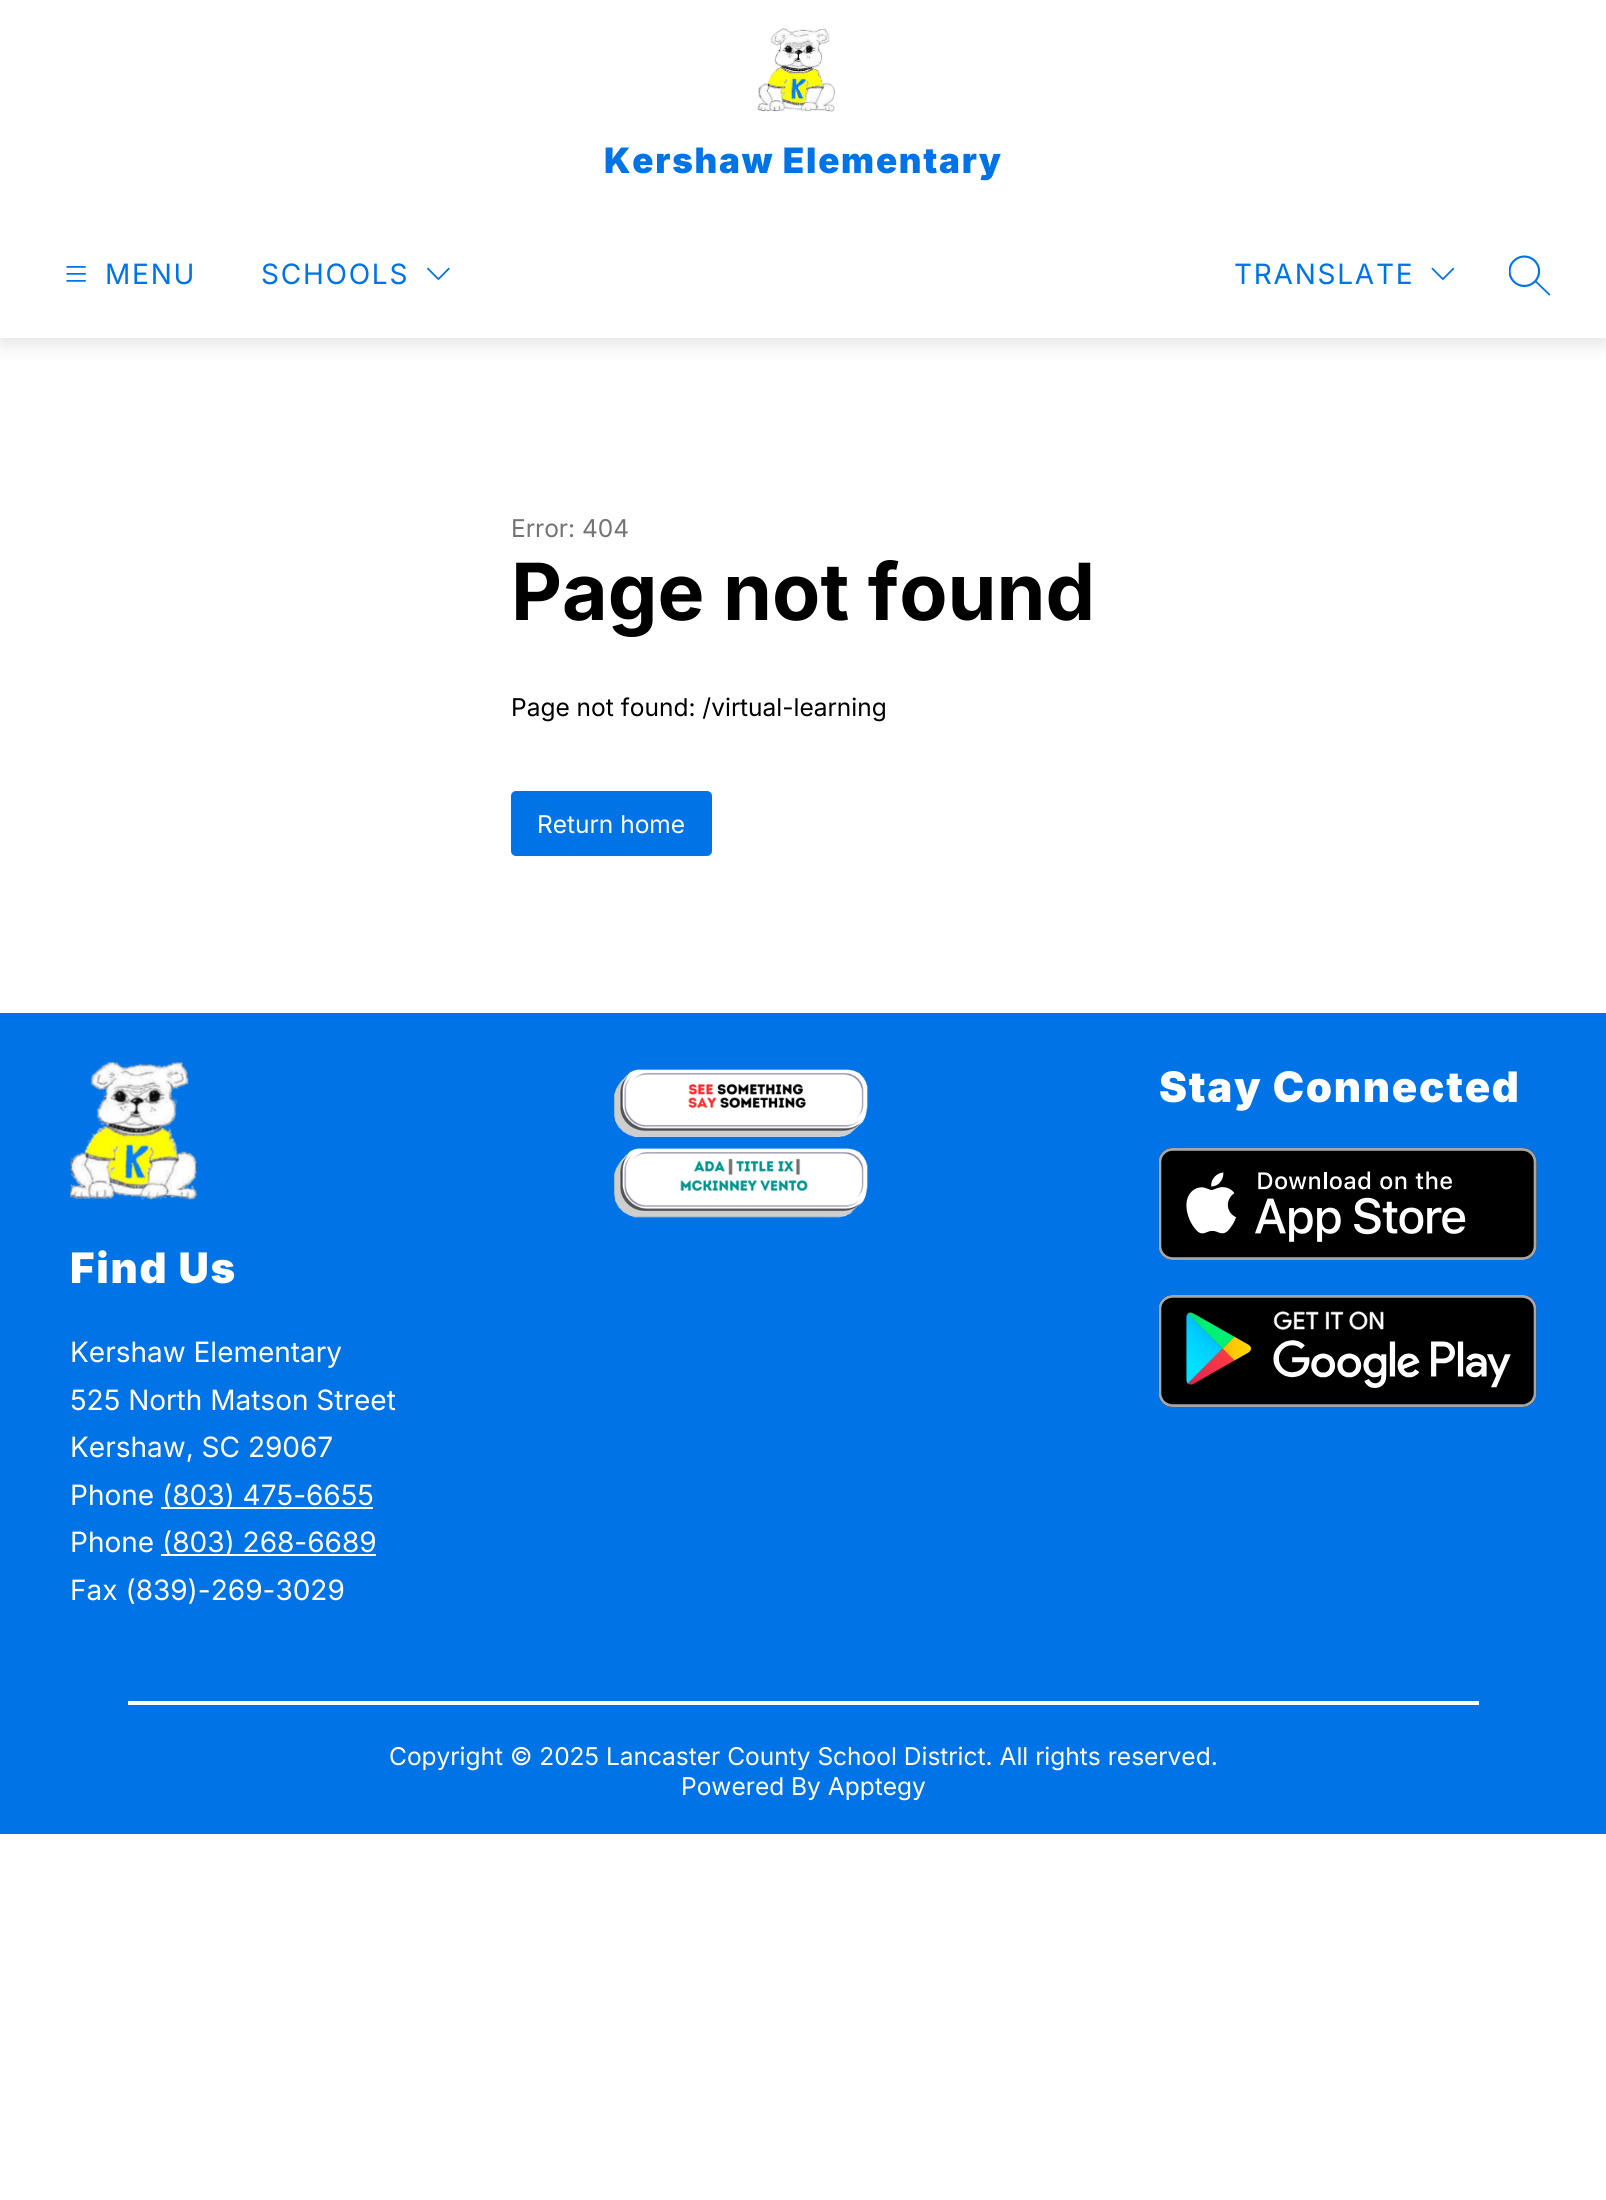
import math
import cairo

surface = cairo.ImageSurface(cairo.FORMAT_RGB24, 1606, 2200)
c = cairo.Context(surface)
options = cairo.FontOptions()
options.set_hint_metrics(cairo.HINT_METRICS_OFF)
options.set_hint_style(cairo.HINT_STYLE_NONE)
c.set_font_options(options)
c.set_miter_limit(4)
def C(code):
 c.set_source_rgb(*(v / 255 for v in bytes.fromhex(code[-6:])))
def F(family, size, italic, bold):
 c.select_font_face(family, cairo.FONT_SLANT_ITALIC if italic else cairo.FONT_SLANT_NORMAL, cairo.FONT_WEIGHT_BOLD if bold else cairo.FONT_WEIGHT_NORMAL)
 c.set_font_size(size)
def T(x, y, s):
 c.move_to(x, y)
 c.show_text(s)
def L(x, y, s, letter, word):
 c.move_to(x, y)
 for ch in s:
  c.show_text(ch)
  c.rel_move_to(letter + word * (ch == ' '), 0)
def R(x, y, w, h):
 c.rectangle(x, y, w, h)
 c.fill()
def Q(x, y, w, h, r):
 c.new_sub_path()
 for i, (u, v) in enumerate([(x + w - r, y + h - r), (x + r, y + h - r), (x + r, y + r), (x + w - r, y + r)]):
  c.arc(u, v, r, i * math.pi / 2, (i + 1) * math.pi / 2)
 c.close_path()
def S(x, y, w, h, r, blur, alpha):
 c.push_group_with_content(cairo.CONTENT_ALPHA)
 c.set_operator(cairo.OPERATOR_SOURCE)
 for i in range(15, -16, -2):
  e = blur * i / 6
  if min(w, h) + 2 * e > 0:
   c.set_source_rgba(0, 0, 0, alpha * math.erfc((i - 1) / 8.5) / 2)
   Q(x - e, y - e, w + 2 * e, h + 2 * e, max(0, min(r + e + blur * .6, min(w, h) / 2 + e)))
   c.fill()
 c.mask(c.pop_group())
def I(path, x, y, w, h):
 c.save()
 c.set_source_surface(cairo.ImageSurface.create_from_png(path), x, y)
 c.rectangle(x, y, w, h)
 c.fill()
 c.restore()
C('ffffff')
c.paint()
C('000000')
S(0,7,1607,338,0,9,.1)
C('ffffff')
R(0,0,1606,338)
I('1.png',757,28,78,84)
F('Inter Black',35,0,0)
C('0073e6')
L(604,173,'Kershaw Elementary',1.75,0)
I('2.png',66,266,20,16)
F('Inter',28,0,0)
L(105,284,'MENU',1.75,0)
L(261,284,'SCHOOLS',1.75,0)
I('3.png',427,267,23,13)
L(1234,284,'TRANSLATE',1.75,0)
I('4.png',1431,267,24,13)
I('5.png',1509,255,42,41)
F('Inter',24.5,0,0)
C('747474')
T(511,537,'Error: 404')
F('Inter',78.75,0,1)
C('000000')
T(511,620,'Page not found')
F('Inter',24.5,0,0)
T(511,716,'Page not found: /virtual-learning')
C('0073e6')
Q(511,791,201,65,5)
c.fill()
C('ffffff')
T(537,833,'Return home')
C('0073e6')
R(0,1013,1606,821)
I('6.png',614,1069,254,68)
I('7.png',614,1148,254,70)
F('Inter Black',42,0,0)
C('ffffff')
L(1159,1102,'Stay Connected',1.75,0)
I('8.png',1159,1148,378,112)
I('9.png',1159,1295,378,112)
I('10.png',70,1062,128,139)
L(70,1283,'Find Us',1.75,0)
F('Inter',28,0,0)
T(70,1362,'Kershaw Elementary')
T(70,1410,'525 North Matson Street')
T(70,1457,'Kershaw, SC 29067')
T(70,1505,'Phone')
R(161,1507,212,2)
T(162,1505,'(803) 475-6655')
T(70,1552,'Phone')
R(161,1554,215,2)
T(162,1552,'(803) 268-6689')
T(70,1600,'Fax (839)-269-3029')
R(128,1701,1351,4)
F('Inter',24.5,0,0)
T(389,1765,'Copyright © 2025 Lancaster County School District. All rights reserved.')
T(681,1795,'Powered By Apptegy')
surface.write_to_png('o.png')
